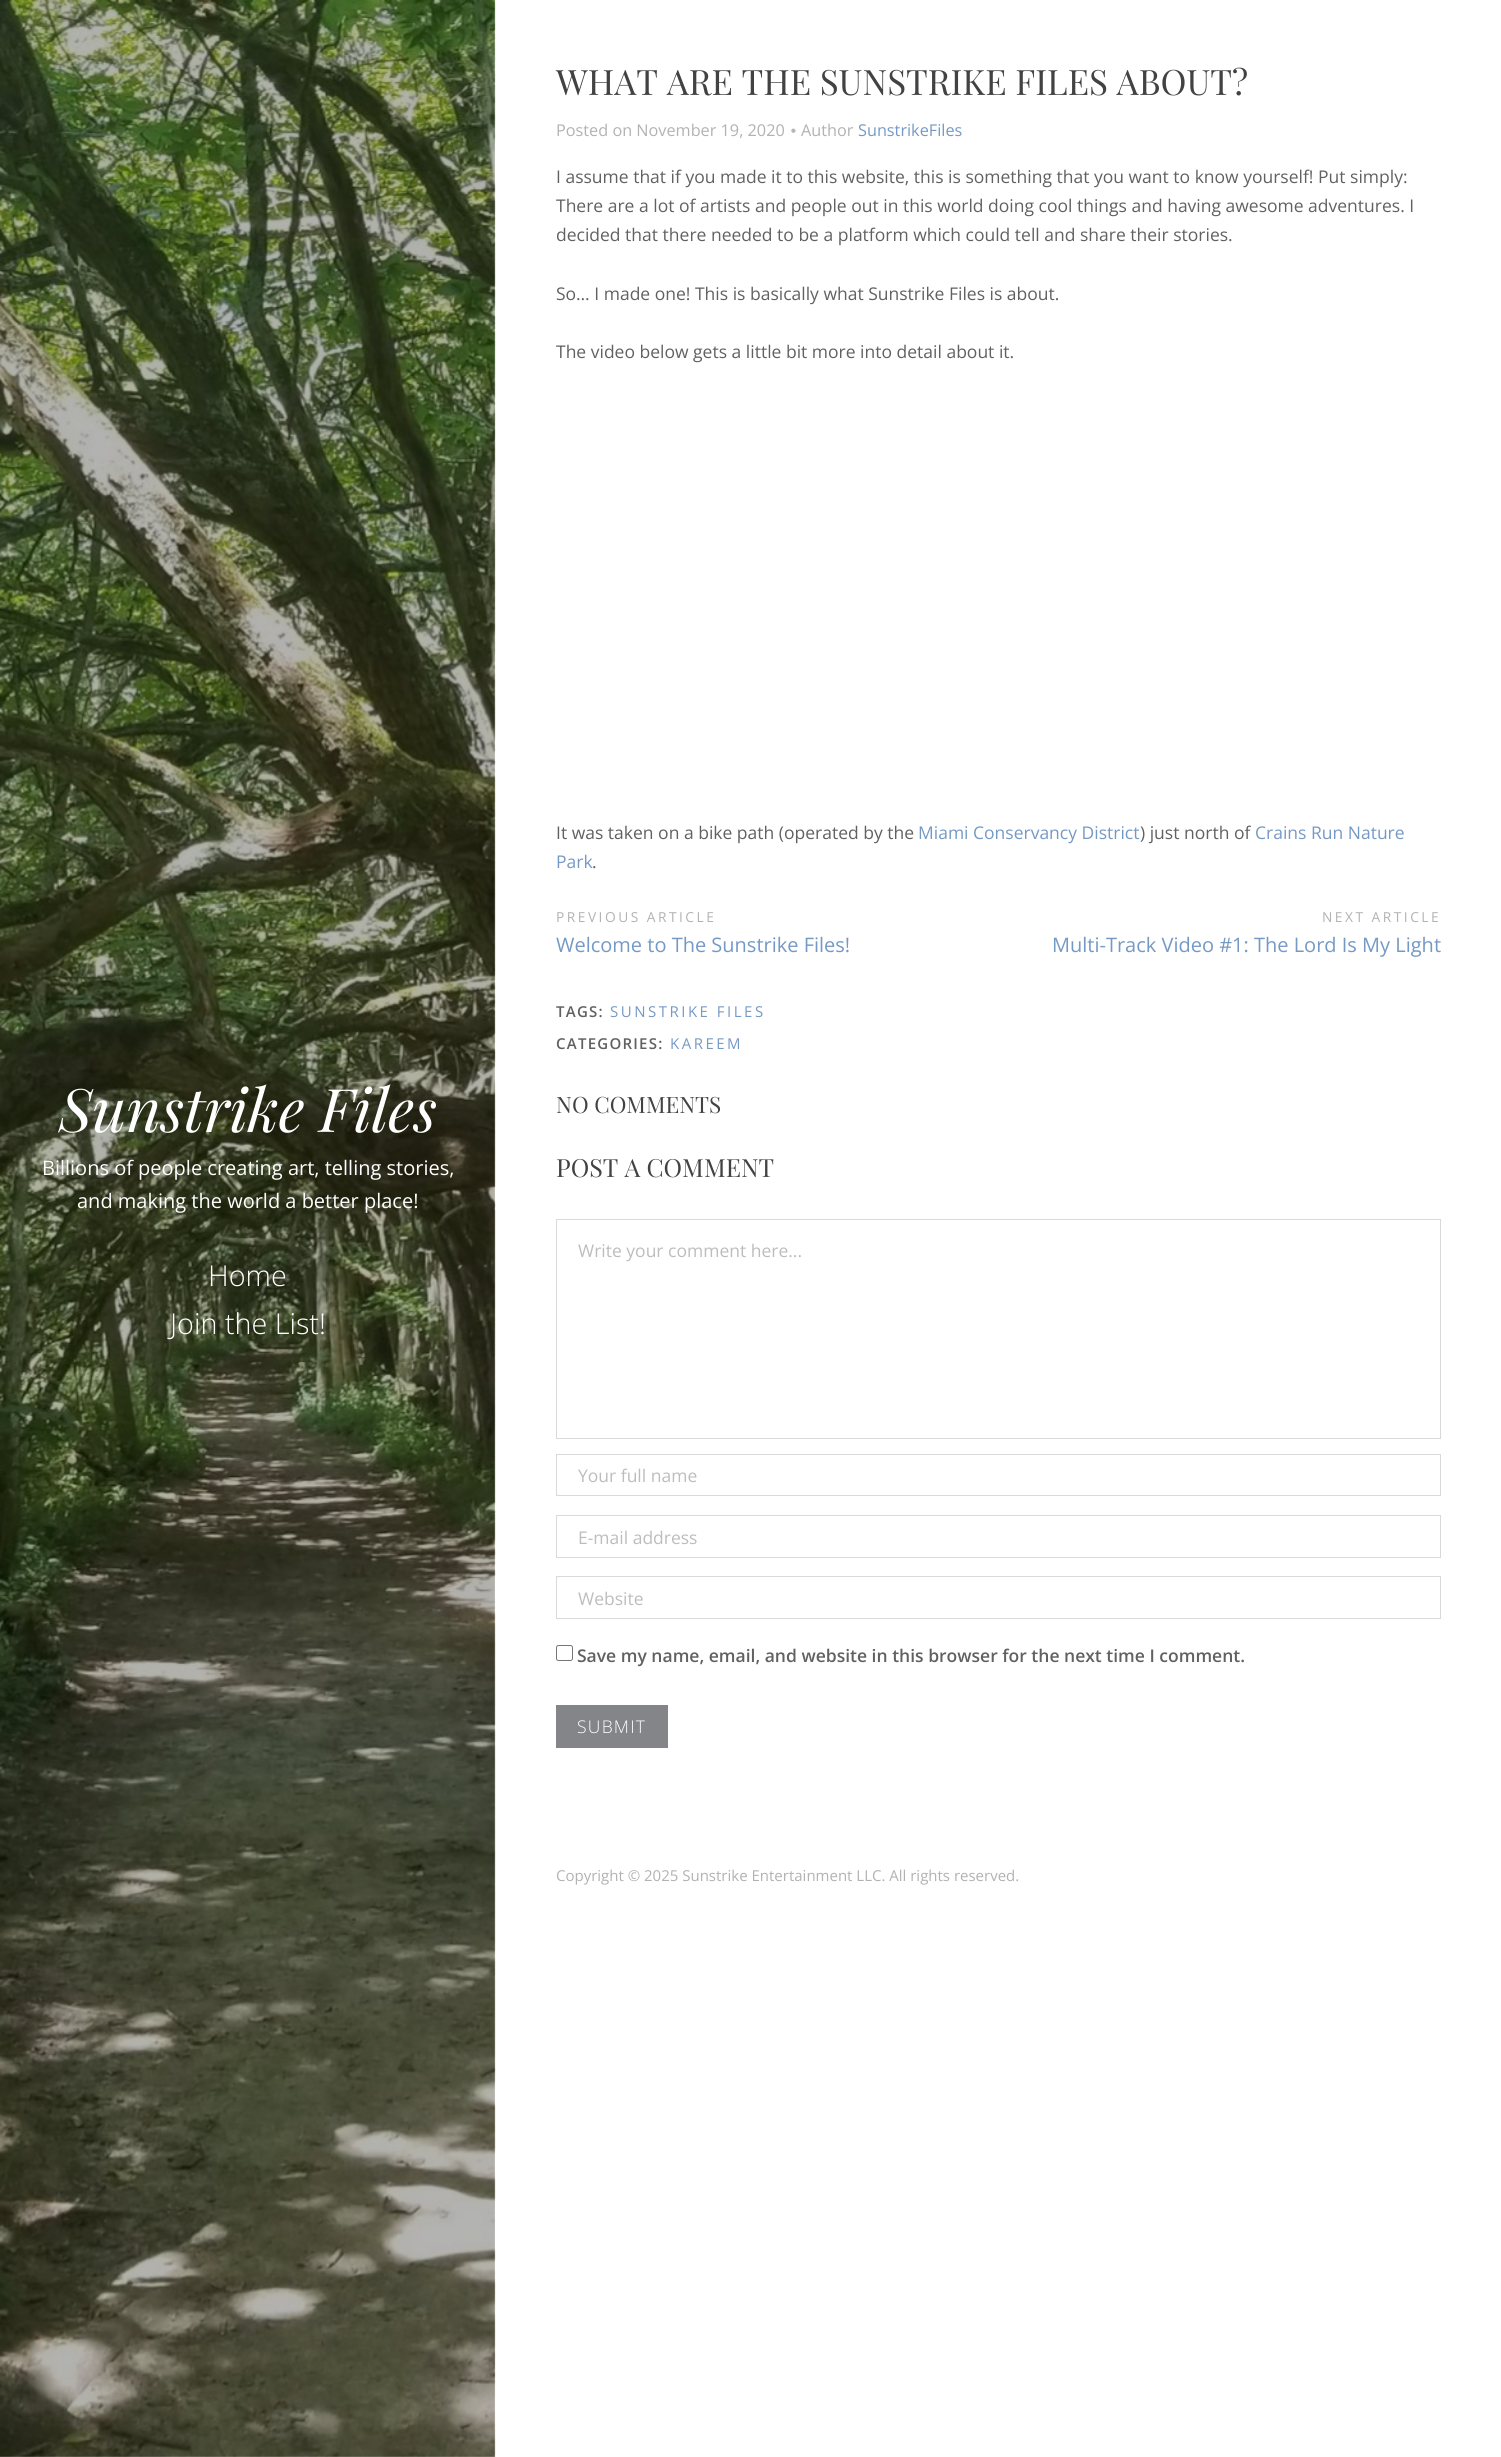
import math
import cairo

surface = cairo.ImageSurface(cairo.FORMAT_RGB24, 1501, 2457)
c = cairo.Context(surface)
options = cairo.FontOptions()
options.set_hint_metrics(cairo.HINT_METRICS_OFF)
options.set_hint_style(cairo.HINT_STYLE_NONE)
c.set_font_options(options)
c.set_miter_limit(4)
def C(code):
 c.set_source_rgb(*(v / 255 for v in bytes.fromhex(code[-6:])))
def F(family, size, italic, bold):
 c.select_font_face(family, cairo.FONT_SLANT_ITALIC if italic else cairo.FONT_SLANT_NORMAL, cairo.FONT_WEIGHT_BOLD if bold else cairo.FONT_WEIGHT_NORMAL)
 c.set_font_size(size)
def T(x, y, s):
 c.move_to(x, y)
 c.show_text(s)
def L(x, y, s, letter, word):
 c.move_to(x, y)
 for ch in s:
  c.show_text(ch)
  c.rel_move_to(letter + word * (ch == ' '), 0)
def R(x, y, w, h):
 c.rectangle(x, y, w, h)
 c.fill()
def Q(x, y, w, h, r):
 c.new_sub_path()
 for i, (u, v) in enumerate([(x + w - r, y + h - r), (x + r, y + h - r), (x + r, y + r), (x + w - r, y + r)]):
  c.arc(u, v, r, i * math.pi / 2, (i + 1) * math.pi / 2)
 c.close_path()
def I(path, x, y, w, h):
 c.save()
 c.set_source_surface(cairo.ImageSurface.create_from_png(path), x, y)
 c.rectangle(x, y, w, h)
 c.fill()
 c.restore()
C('ffffff')
c.paint()
I('1.png',0,0,496,2457)
F('Playfair Display',60,1,0)
C('ffffff')
T(59,1132,'Sunstrike Files')
F('Open Sans',20,0,0)
T(42,1175,'Billions of people creating art, telling stories,')
T(77,1208,'and making the world a better place!')
F('Open Sans Light',28.75,0,0)
T(208,1286,'Home')
T(170,1334,'Join the List!')
F('Playfair Display',35,0,0)
C('424242')
T(556,95,'WHAT ARE THE SUNSTRIKE FILES ABOUT?')
F('Open Sans',16.25,0,0)
C('b2b2b2')
T(556,136,'Posted on November 19, 2020')
I('2.png',791,128,5,5)
T(801,136,'Author')
C('7599c5')
T(858,136,'SunstrikeFiles')
F('Open Sans',17.5,0,0)
C('616161')
T(556,183,'I assume that if you made it to this website, this is something that you want to know yourself! Put simply:')
T(556,212,'There are a lot of artists and people out in this world doing cool things and having awesome adventures. I')
T(556,241,'decided that there needed to be a platform which could tell and share their stories.')
T(556,300,'So… I made one! This is basically what Sunstrike Files is about.')
T(556,358,'The video below gets a little bit more into detail about it.')
T(556,839,'It was taken on a bike path (operated by the')
C('7599c5')
T(918,839,'Miami Conservancy District')
C('616161')
T(1140,839,') just north of')
C('7599c5')
T(1255,839,'Crains Run Nature')
T(556,868,'Park')
C('616161')
T(592,868,'.')
F('Open Sans',13.75,0,0)
C('b2b2b2')
L(556,922,'PREVIOUS ARTICLE',2.5,0)
F('Open Sans',20,0,0)
C('7599c5')
T(556,952,'Welcome to The Sunstrike Files!')
F('Open Sans',13.75,0,0)
C('b2b2b2')
L(1322,922,'NEXT ARTICLE',2.5,0)
F('Open Sans',20,0,0)
C('7599c5')
T(1052,952,'Multi-Track Video #1: The Lord Is My Light')
F('Open Sans SemiBold',15,0,0)
C('616161')
L(556,1017,'TAGS:',1.25,0)
F('Open Sans',15,0,0)
C('7599c5')
L(610,1017,'SUNSTRIKE FILES',2.5,0)
F('Open Sans SemiBold',15,0,0)
C('616161')
L(556,1049,'CATEGORIES:',1.25,0)
F('Open Sans',15,0,0)
C('7599c5')
L(670,1049,'KAREEM',2.5,0)
F('Playfair Display',22.5,0,0)
C('424242')
T(556,1113,'NO COMMENTS')
F('Playfair Display',25,0,0)
T(556,1177,'POST A COMMENT')
c.rectangle(556.5,1219.5,884,219)
C('d9d9d9')
c.set_line_width(1)
c.stroke()
F('Open Sans',17.5,0,0)
C('bdbdbd')
T(578,1257,'Write your comment here...')
c.rectangle(556.5,1454.5,884,41)
C('d9d9d9')
c.stroke()
C('bdbdbd')
T(578,1482,'Your full name')
c.rectangle(556.5,1515.5,884,42)
C('d9d9d9')
c.stroke()
C('bdbdbd')
T(578,1544,'E-mail address')
c.rectangle(556.5,1576.5,884,42)
C('d9d9d9')
c.stroke()
C('bdbdbd')
T(578,1605,'Website')
Q(556.5,1645.5,16,15,2)
C('767676')
c.stroke()
F('Open Sans SemiBold',17.5,0,0)
C('616161')
T(577,1662,'Save my name, email, and website in this browser for the next time I comment.')
C('838588')
R(556,1705,112,43)
F('Open Sans Light',17.5,0,0)
C('ffffff')
L(577,1733,'SUBMIT',1.25,0)
F('Open Sans',15,0,0)
C('b2b2b2')
T(556,1881,'Copyright © 2025 Sunstrike Entertainment LLC. All rights reserved.')
surface.write_to_png('o.png')
